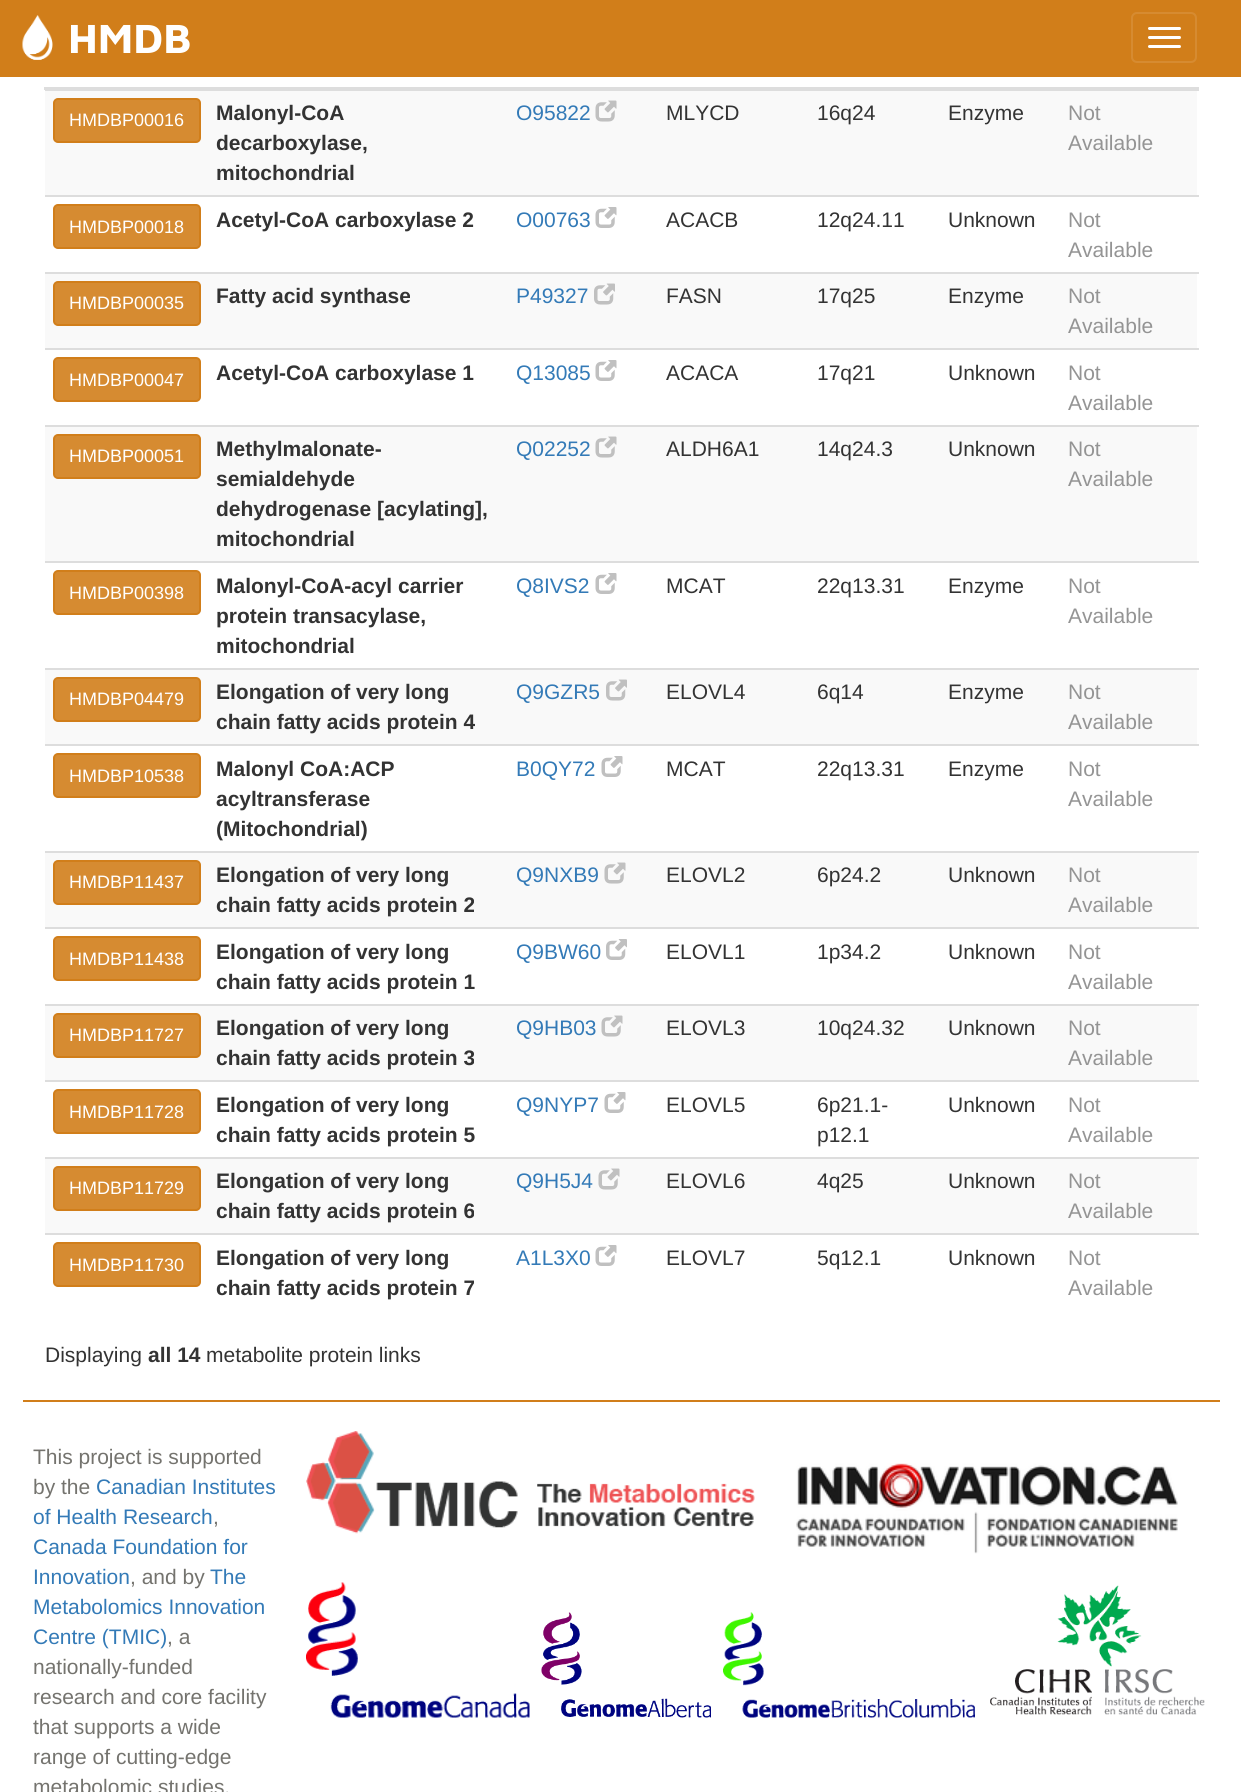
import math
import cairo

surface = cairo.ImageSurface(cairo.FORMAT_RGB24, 1241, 1792)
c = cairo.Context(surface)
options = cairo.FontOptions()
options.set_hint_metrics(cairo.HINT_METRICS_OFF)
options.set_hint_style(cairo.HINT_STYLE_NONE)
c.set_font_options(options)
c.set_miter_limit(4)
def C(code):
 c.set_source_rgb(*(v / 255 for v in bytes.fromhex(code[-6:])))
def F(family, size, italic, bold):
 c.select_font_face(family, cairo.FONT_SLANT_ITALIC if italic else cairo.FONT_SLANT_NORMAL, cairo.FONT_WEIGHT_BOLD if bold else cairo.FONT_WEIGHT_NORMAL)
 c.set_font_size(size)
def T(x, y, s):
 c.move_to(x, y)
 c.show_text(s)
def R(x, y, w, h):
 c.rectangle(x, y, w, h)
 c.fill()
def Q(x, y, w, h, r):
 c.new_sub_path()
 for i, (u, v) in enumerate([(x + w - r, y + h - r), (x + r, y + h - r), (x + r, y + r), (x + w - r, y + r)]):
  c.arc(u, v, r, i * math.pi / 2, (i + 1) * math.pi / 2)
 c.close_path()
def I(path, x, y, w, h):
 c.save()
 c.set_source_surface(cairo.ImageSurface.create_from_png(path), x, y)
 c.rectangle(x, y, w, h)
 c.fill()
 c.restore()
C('ffffff')
c.paint()
C('d17e1a')
R(0,0,1241,77)
I('1.png',22,15,31,45)
F('Maven Pro',42,0,1)
C('ffffff')
T(68,53,'HMDB')
Q(1132,13,64,49,5)
C('d68b31')
c.stroke()
C('ffffff')
Q(1148,27,33,3,1.5)
c.fill()
Q(1148,36,33,3,1.5)
c.fill()
Q(1148,45,33,3,1.5)
c.fill()
C('dddddd')
R(44,87,1155,3)
C('f9f9f9')
R(45,91,1152,104)
C('d68b31')
Q(54,99,146,43,4)
c.fill_preserve()
C('d17e1a')
c.stroke()
F('Liberation Sans',18,0,0)
C('ffffff')
T(69,126,'HMDBP00016')
F('Liberation Sans',21,0,1)
C('333333')
T(216,120,'Malonyl-CoA')
T(216,150,'decarboxylase,')
T(216,180,'mitochondrial')
F('Liberation Sans',21,0,0)
C('337ab7')
T(516,120,'O95822')
I('2.png',595,100,22,22)
C('333333')
T(666,120,'MLYCD')
T(817,120,'16q24')
T(948,120,'Enzyme')
C('dddddd')
R(45,90,1154,1)
C('949494')
T(1068,120,'Not')
T(1068,150,'Available')
C('d68b31')
Q(54,205,146,43,4)
c.fill_preserve()
C('d17e1a')
c.stroke()
F('Liberation Sans',18,0,0)
C('ffffff')
T(69,233,'HMDBP00018')
F('Liberation Sans',21,0,1)
C('333333')
T(216,227,'Acetyl-CoA carboxylase 2')
F('Liberation Sans',21,0,0)
C('337ab7')
T(516,227,'O00763')
I('3.png',595,207,22,21)
C('333333')
T(666,227,'ACACB')
T(817,227,'12q24.11')
T(948,227,'Unknown')
C('dddddd')
R(45,195,1154,2)
C('949494')
T(1068,227,'Not')
T(1068,257,'Available')
C('f9f9f9')
R(45,274,1152,74)
C('d68b31')
Q(54,282,146,43,4)
c.fill_preserve()
C('d17e1a')
c.stroke()
F('Liberation Sans',18,0,0)
C('ffffff')
T(69,309,'HMDBP00035')
F('Liberation Sans',21,0,1)
C('333333')
T(216,303,'Fatty acid synthase')
F('Liberation Sans',21,0,0)
C('337ab7')
T(516,303,'P49327')
I('4.png',594,283,21,22)
C('333333')
T(666,303,'FASN')
T(817,303,'17q25')
T(948,303,'Enzyme')
C('dddddd')
R(45,272,1154,2)
C('949494')
T(1068,303,'Not')
T(1068,333,'Available')
C('d68b31')
Q(54,358,146,43,4)
c.fill_preserve()
C('d17e1a')
c.stroke()
F('Liberation Sans',18,0,0)
C('ffffff')
T(69,386,'HMDBP00047')
F('Liberation Sans',21,0,1)
C('333333')
T(216,380,'Acetyl-CoA carboxylase 1')
F('Liberation Sans',21,0,0)
C('337ab7')
T(516,380,'Q13085')
I('3.png',595,360,22,21)
C('333333')
T(666,380,'ACACA')
T(817,380,'17q21')
T(948,380,'Unknown')
C('dddddd')
R(45,348,1154,2)
C('949494')
T(1068,380,'Not')
T(1068,410,'Available')
C('f9f9f9')
R(45,427,1152,134)
C('d68b31')
Q(54,435,146,43,4)
c.fill_preserve()
C('d17e1a')
c.stroke()
F('Liberation Sans',18,0,0)
C('ffffff')
T(69,462,'HMDBP00051')
F('Liberation Sans',21,0,1)
C('333333')
T(216,456,'Methylmalonate-')
T(216,486,'semialdehyde')
T(216,516,'dehydrogenase [acylating],')
T(216,546,'mitochondrial')
F('Liberation Sans',21,0,0)
C('337ab7')
T(516,456,'Q02252')
I('2.png',595,436,22,22)
C('333333')
T(666,456,'ALDH6A1')
T(817,456,'14q24.3')
T(948,456,'Unknown')
C('dddddd')
R(45,425,1154,2)
C('949494')
T(1068,456,'Not')
T(1068,486,'Available')
C('d68b31')
Q(54,571,146,43,4)
c.fill_preserve()
C('d17e1a')
c.stroke()
F('Liberation Sans',18,0,0)
C('ffffff')
T(69,599,'HMDBP00398')
F('Liberation Sans',21,0,1)
C('333333')
T(216,593,'Malonyl-CoA-acyl carrier')
T(216,623,'protein transacylase,')
T(216,653,'mitochondrial')
F('Liberation Sans',21,0,0)
C('337ab7')
T(516,593,'Q8IVS2')
I('3.png',595,573,22,21)
C('333333')
T(666,593,'MCAT')
T(817,593,'22q13.31')
T(948,593,'Enzyme')
C('dddddd')
R(45,561,1154,2)
C('949494')
T(1068,593,'Not')
T(1068,623,'Available')
C('f9f9f9')
R(45,670,1152,74)
C('d68b31')
Q(54,678,146,43,4)
c.fill_preserve()
C('d17e1a')
c.stroke()
F('Liberation Sans',18,0,0)
C('ffffff')
T(69,705,'HMDBP04479')
F('Liberation Sans',21,0,1)
C('333333')
T(216,699,'Elongation of very long')
T(216,729,'chain fatty acids protein 4')
F('Liberation Sans',21,0,0)
C('337ab7')
T(516,699,'Q9GZR5')
I('4.png',606,679,21,22)
C('333333')
T(666,699,'ELOVL4')
T(817,699,'6q14')
T(948,699,'Enzyme')
C('dddddd')
R(45,668,1154,2)
C('949494')
T(1068,699,'Not')
T(1068,729,'Available')
C('d68b31')
Q(54,754,146,43,4)
c.fill_preserve()
C('d17e1a')
c.stroke()
F('Liberation Sans',18,0,0)
C('ffffff')
T(69,782,'HMDBP10538')
F('Liberation Sans',21,0,1)
C('333333')
T(216,776,'Malonyl CoA:ACP')
T(216,806,'acyltransferase')
T(216,836,'(Mitochondrial)')
F('Liberation Sans',21,0,0)
C('337ab7')
T(516,776,'B0QY72')
I('3.png',601,756,22,21)
C('333333')
T(666,776,'MCAT')
T(817,776,'22q13.31')
T(948,776,'Enzyme')
C('dddddd')
R(45,744,1154,2)
C('949494')
T(1068,776,'Not')
T(1068,806,'Available')
C('f9f9f9')
R(45,853,1152,74)
C('d68b31')
Q(54,861,146,43,4)
c.fill_preserve()
C('d17e1a')
c.stroke()
F('Liberation Sans',18,0,0)
C('ffffff')
T(69,888,'HMDBP11437')
F('Liberation Sans',21,0,1)
C('333333')
T(216,882,'Elongation of very long')
T(216,912,'chain fatty acids protein 2')
F('Liberation Sans',21,0,0)
C('337ab7')
T(516,882,'Q9NXB9')
I('2.png',604,862,22,22)
C('333333')
T(666,882,'ELOVL2')
T(817,882,'6p24.2')
T(948,882,'Unknown')
C('dddddd')
R(45,851,1154,2)
C('949494')
T(1068,882,'Not')
T(1068,912,'Available')
C('d68b31')
Q(54,937,146,43,4)
c.fill_preserve()
C('d17e1a')
c.stroke()
F('Liberation Sans',18,0,0)
C('ffffff')
T(69,965,'HMDBP11438')
F('Liberation Sans',21,0,1)
C('333333')
T(216,959,'Elongation of very long')
T(216,989,'chain fatty acids protein 1')
F('Liberation Sans',21,0,0)
C('337ab7')
T(516,959,'Q9BW60')
I('5.png',606,939,21,21)
C('333333')
T(666,959,'ELOVL1')
T(817,959,'1p34.2')
T(948,959,'Unknown')
C('dddddd')
R(45,927,1154,2)
C('949494')
T(1068,959,'Not')
T(1068,989,'Available')
C('f9f9f9')
R(45,1006,1152,74)
C('d68b31')
Q(54,1014,146,43,4)
c.fill_preserve()
C('d17e1a')
c.stroke()
F('Liberation Sans',18,0,0)
C('ffffff')
T(69,1041,'HMDBP11727')
F('Liberation Sans',21,0,1)
C('333333')
T(216,1035,'Elongation of very long')
T(216,1065,'chain fatty acids protein 3')
F('Liberation Sans',21,0,0)
C('337ab7')
T(516,1035,'Q9HB03')
I('2.png',601,1015,22,22)
C('333333')
T(666,1035,'ELOVL3')
T(817,1035,'10q24.32')
T(948,1035,'Unknown')
C('dddddd')
R(45,1004,1154,2)
C('949494')
T(1068,1035,'Not')
T(1068,1065,'Available')
C('d68b31')
Q(54,1090,146,43,4)
c.fill_preserve()
C('d17e1a')
c.stroke()
F('Liberation Sans',18,0,0)
C('ffffff')
T(69,1118,'HMDBP11728')
F('Liberation Sans',21,0,1)
C('333333')
T(216,1112,'Elongation of very long')
T(216,1142,'chain fatty acids protein 5')
F('Liberation Sans',21,0,0)
C('337ab7')
T(516,1112,'Q9NYP7')
I('3.png',604,1092,22,21)
C('333333')
T(666,1112,'ELOVL5')
T(817,1112,'6p21.1-')
T(817,1142,'p12.1')
T(948,1112,'Unknown')
C('dddddd')
R(45,1080,1154,2)
C('949494')
T(1068,1112,'Not')
T(1068,1142,'Available')
C('f9f9f9')
R(45,1159,1152,74)
C('d68b31')
Q(54,1167,146,43,4)
c.fill_preserve()
C('d17e1a')
c.stroke()
F('Liberation Sans',18,0,0)
C('ffffff')
T(69,1194,'HMDBP11729')
F('Liberation Sans',21,0,1)
C('333333')
T(216,1188,'Elongation of very long')
T(216,1218,'chain fatty acids protein 6')
F('Liberation Sans',21,0,0)
C('337ab7')
T(516,1188,'Q9H5J4')
I('2.png',598,1168,22,22)
C('333333')
T(666,1188,'ELOVL6')
T(817,1188,'4q25')
T(948,1188,'Unknown')
C('dddddd')
R(45,1157,1154,2)
C('949494')
T(1068,1188,'Not')
T(1068,1218,'Available')
C('d68b31')
Q(54,1243,146,43,4)
c.fill_preserve()
C('d17e1a')
c.stroke()
F('Liberation Sans',18,0,0)
C('ffffff')
T(69,1271,'HMDBP11730')
F('Liberation Sans',21,0,1)
C('333333')
T(216,1265,'Elongation of very long')
T(216,1295,'chain fatty acids protein 7')
F('Liberation Sans',21,0,0)
C('337ab7')
T(516,1265,'A1L3X0')
I('3.png',595,1245,22,21)
C('333333')
T(666,1265,'ELOVL7')
T(817,1265,'5q12.1')
T(948,1265,'Unknown')
C('dddddd')
R(45,1233,1154,2)
C('949494')
T(1068,1265,'Not')
T(1068,1295,'Available')
C('333333')
T(45,1362,'Displaying')
F('Liberation Sans',21,0,1)
T(148,1362,'all 14')
F('Liberation Sans',21,0,0)
T(206,1362,'metabolite protein links')
C('d17e1a')
R(23,1400,1197,2)
C('74736e')
T(33,1464,'This project is supported')
T(33,1494,'by the')
C('337ab7')
T(96,1494,'Canadian Institutes')
T(33,1524,'of Health Research')
C('74736e')
T(213,1524,',')
C('337ab7')
T(33,1554,'Canada Foundation for')
T(33,1584,'Innovation')
C('74736e')
T(130,1584,', and by')
C('337ab7')
T(210,1584,'The')
T(33,1614,'Metabolomics Innovation')
T(33,1644,'Centre (TMIC)')
C('74736e')
T(167,1644,', a')
T(33,1674,'nationally-funded')
T(33,1704,'research and core facility')
T(33,1734,'that supports a wide')
T(33,1764,'range of cutting-edge')
T(33,1794,'metabolomic studies.')
I('6.png',306,1431,449,103)
I('7.png',796,1463,382,91)
I('8.png',306,1582,224,136)
I('9.png',541,1612,170,106)
I('10.png',723,1612,252,106)
I('11.png',990,1585,215,130)
surface.write_to_png('o.png')
